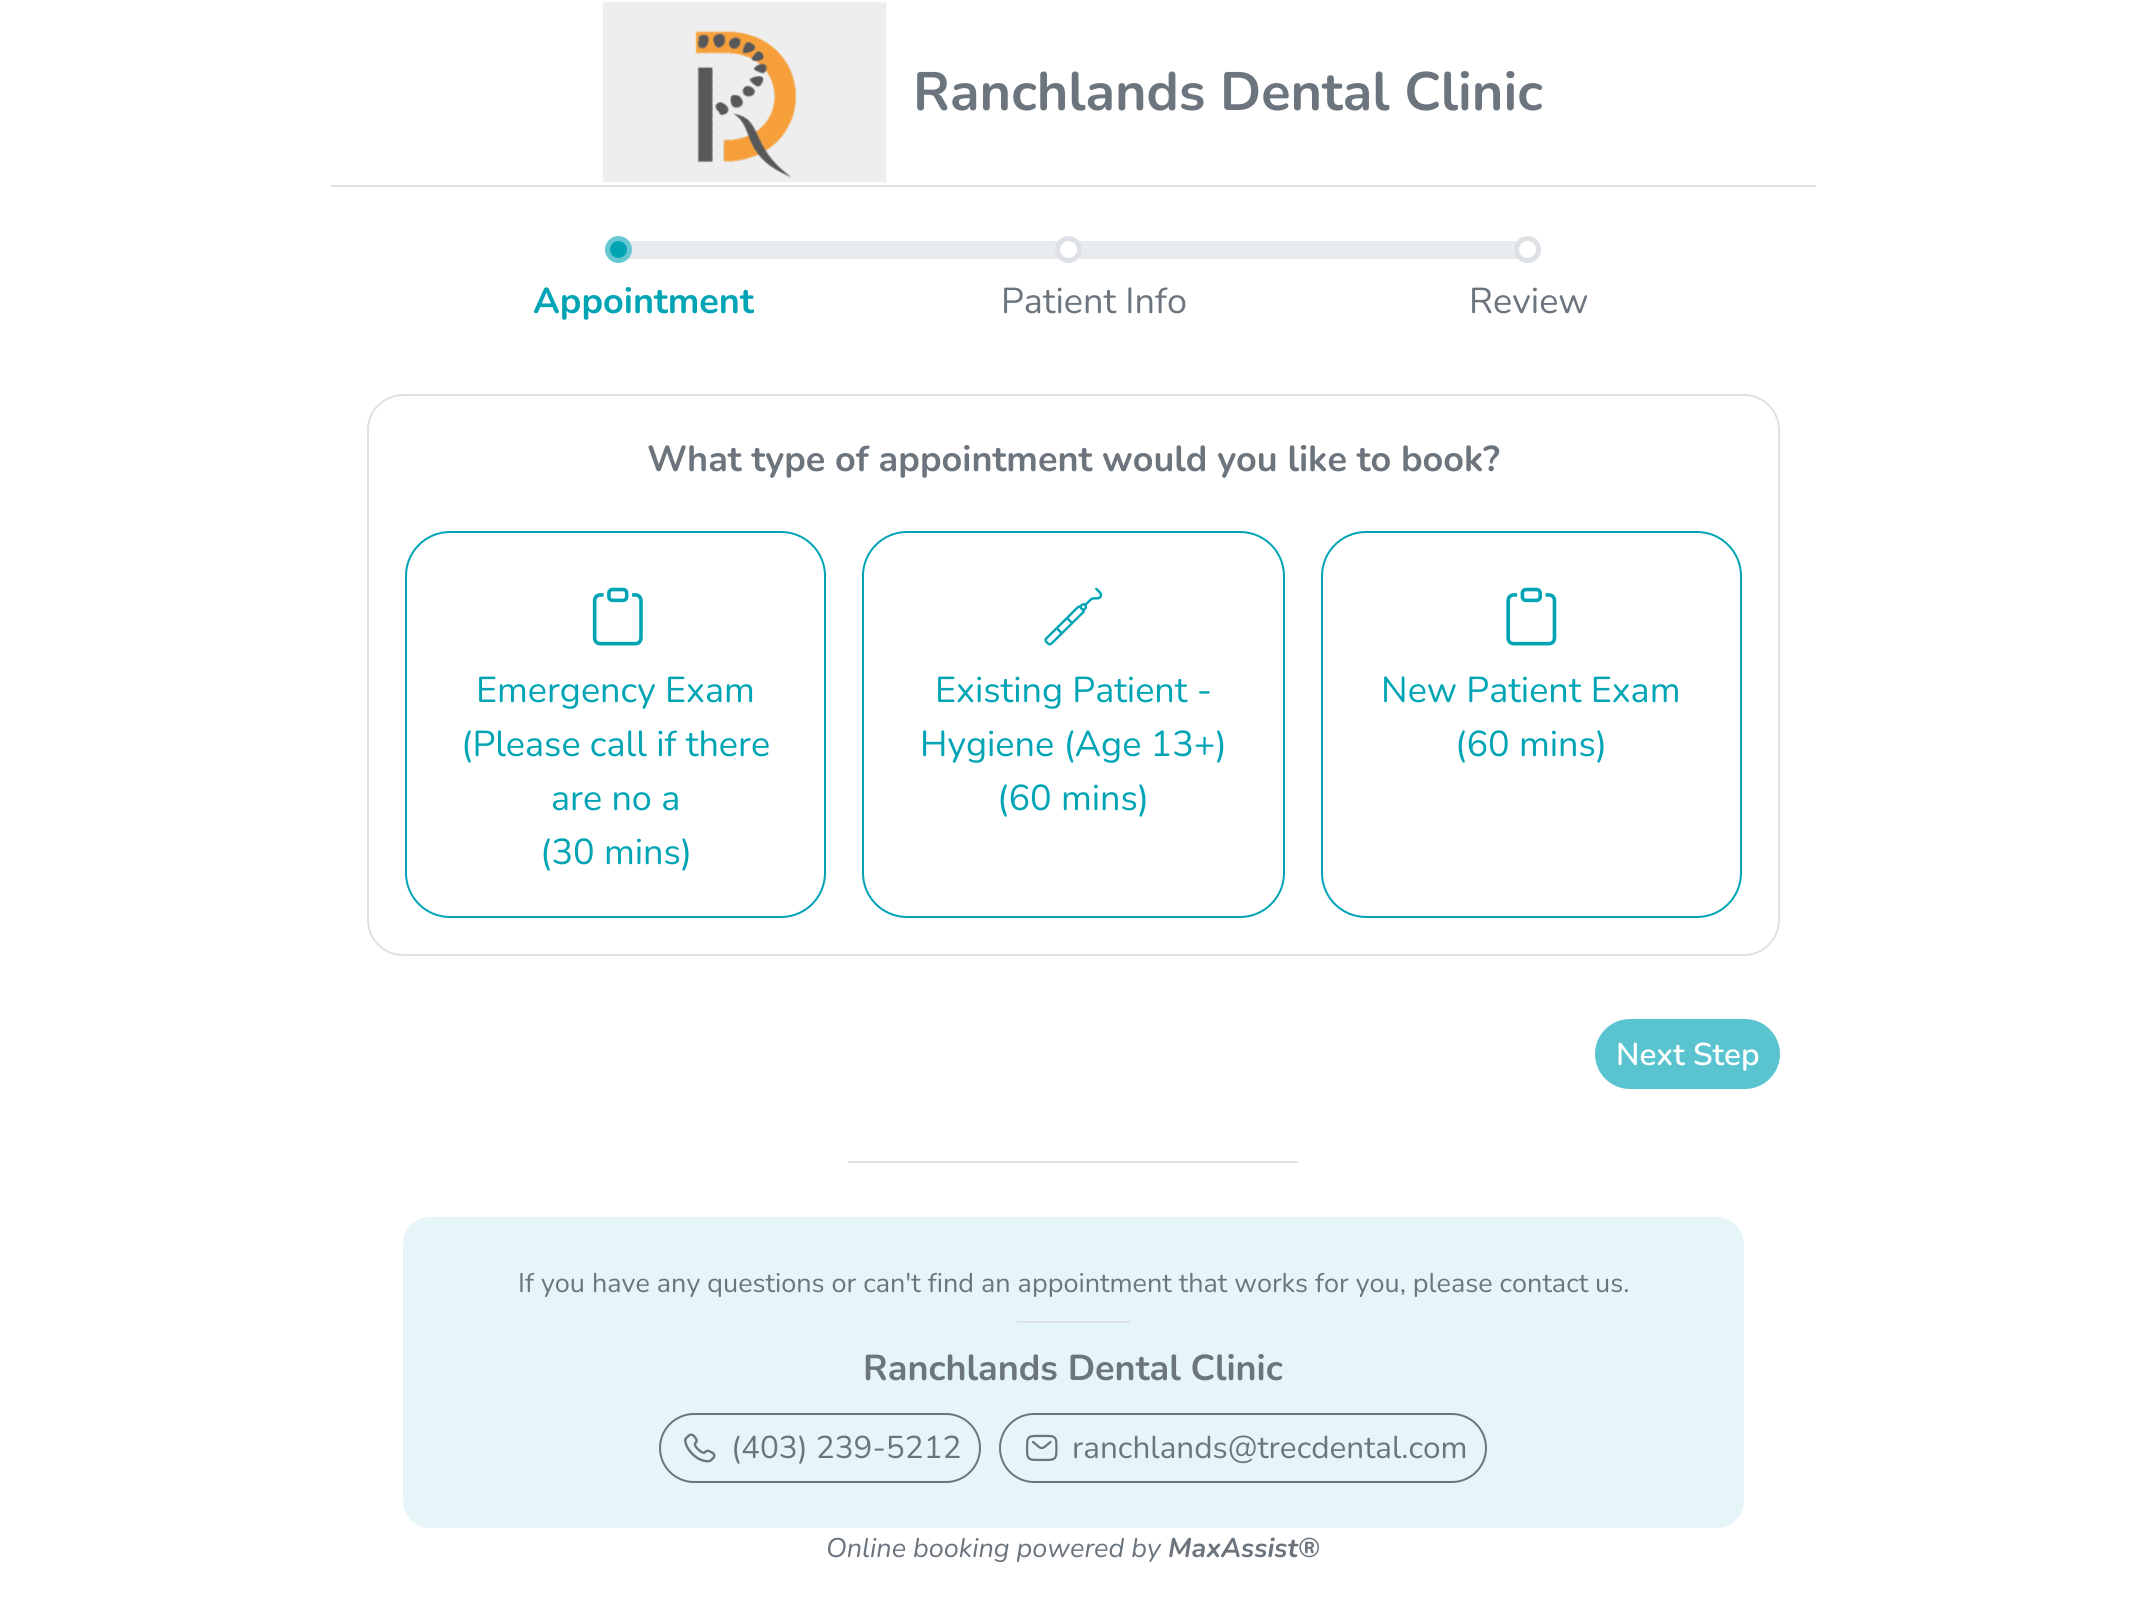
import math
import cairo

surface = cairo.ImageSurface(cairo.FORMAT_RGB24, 2145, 1617)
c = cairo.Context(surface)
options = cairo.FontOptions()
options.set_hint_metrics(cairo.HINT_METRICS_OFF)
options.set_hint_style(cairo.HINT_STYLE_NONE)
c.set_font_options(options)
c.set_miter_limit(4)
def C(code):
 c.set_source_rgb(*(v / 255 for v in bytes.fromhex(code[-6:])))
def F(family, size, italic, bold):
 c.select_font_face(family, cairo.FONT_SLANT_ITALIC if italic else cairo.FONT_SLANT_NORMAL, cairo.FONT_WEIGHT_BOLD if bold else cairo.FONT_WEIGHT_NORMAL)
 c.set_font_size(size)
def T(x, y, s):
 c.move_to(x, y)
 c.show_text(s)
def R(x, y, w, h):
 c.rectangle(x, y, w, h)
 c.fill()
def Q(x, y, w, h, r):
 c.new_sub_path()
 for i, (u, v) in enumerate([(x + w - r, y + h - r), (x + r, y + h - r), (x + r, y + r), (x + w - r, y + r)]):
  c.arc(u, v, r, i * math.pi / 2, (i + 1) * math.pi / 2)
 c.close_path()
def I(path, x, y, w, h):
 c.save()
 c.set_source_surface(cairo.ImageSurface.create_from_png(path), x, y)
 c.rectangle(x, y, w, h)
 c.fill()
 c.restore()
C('ffffff')
c.paint()
C('dee2e6')
R(331,185,1485,2)
I('1.png',603,2,284,181)
F('Nunito',54,0,1)
C('6c757d')
T(913,110,'Ranchlands Dental Clinic')
C('e9ecef')
Q(605,241,936,18,9)
c.fill()
C('00a4b5')
c.arc(618.5,249.5,11,0,2 * math.pi)
c.fill_preserve()
C('66c8d3')
c.set_line_width(5)
c.stroke()
C('ffffff')
c.arc(1068.5,249.5,11,0,2 * math.pi)
c.fill_preserve()
C('dee2e6')
c.stroke()
C('ffffff')
c.arc(1527.5,249.5,11,0,2 * math.pi)
c.fill_preserve()
C('dee2e6')
c.stroke()
F('Nunito',36,0,1)
C('00a4b5')
T(533,313,'Appointment')
F('Nunito',36,0,0)
C('6c757d')
T(1001,313,'Patient Info')
T(1469,313,'Review')
Q(368,395,1411,560,35)
C('dee2e6')
c.set_line_width(2)
c.stroke()
F('Nunito',36,0,1)
C('6c757d')
T(647,471,'What type of appointment would you like to book?')
Q(406,532,419,385,44)
C('00a4b5')
c.stroke()
I('2.png',592,587,51,59)
F('Nunito',36,0,0)
T(476,702,'Emergency Exam')
T(461,756,'(Please call if there')
T(551,810,'are no a')
T(540,864,'(30 mins)')
Q(863,532,421,385,44)
c.stroke()
I('3.png',1044,587,59,59)
T(935,702,'Existing Patient -')
T(920,756,'Hygiene (Age 13+)')
T(997,810,'(60 mins)')
Q(1322,532,419,385,44)
c.stroke()
I('4.png',1506,587,51,59)
T(1381,702,'New Patient Exam')
T(1455,756,'(60 mins)')
C('59c4cf')
Q(1596,1020,183,68,34)
c.fill_preserve()
c.stroke()
F('Nunito SemiBold',31.5,0,0)
C('ffffff')
T(1616,1065,'Next Step')
C('dee2e6')
R(848,1161,450,2)
C('e6f6f8')
Q(403,1217,1341,311,27)
c.fill()
F('Nunito',27,0,0)
C('6c757d')
T(518,1292,'If you have any questions or can\'t find an appointment that works for you, please contact us.')
C('dee2e6')
R(1017,1321,113,2)
F('Nunito',36,0,1)
C('6c757d')
T(863,1380,'Ranchlands Dental Clinic')
Q(660,1414,320,68,34)
c.stroke()
I('5.png',684,1433,32,30)
F('Nunito',31.5,0,0)
T(731,1458,'(403) 239-5212')
Q(1000,1414,486,68,34)
c.stroke()
I('6.png',1026,1434,32,28)
T(1072,1458,'ranchlands@trecdental.com')
F('Nunito',27,1,0)
T(826,1557,'Online booking powered by')
F('Nunito',27,1,1)
T(1168,1557,'MaxAssist®')
surface.write_to_png('o.png')
